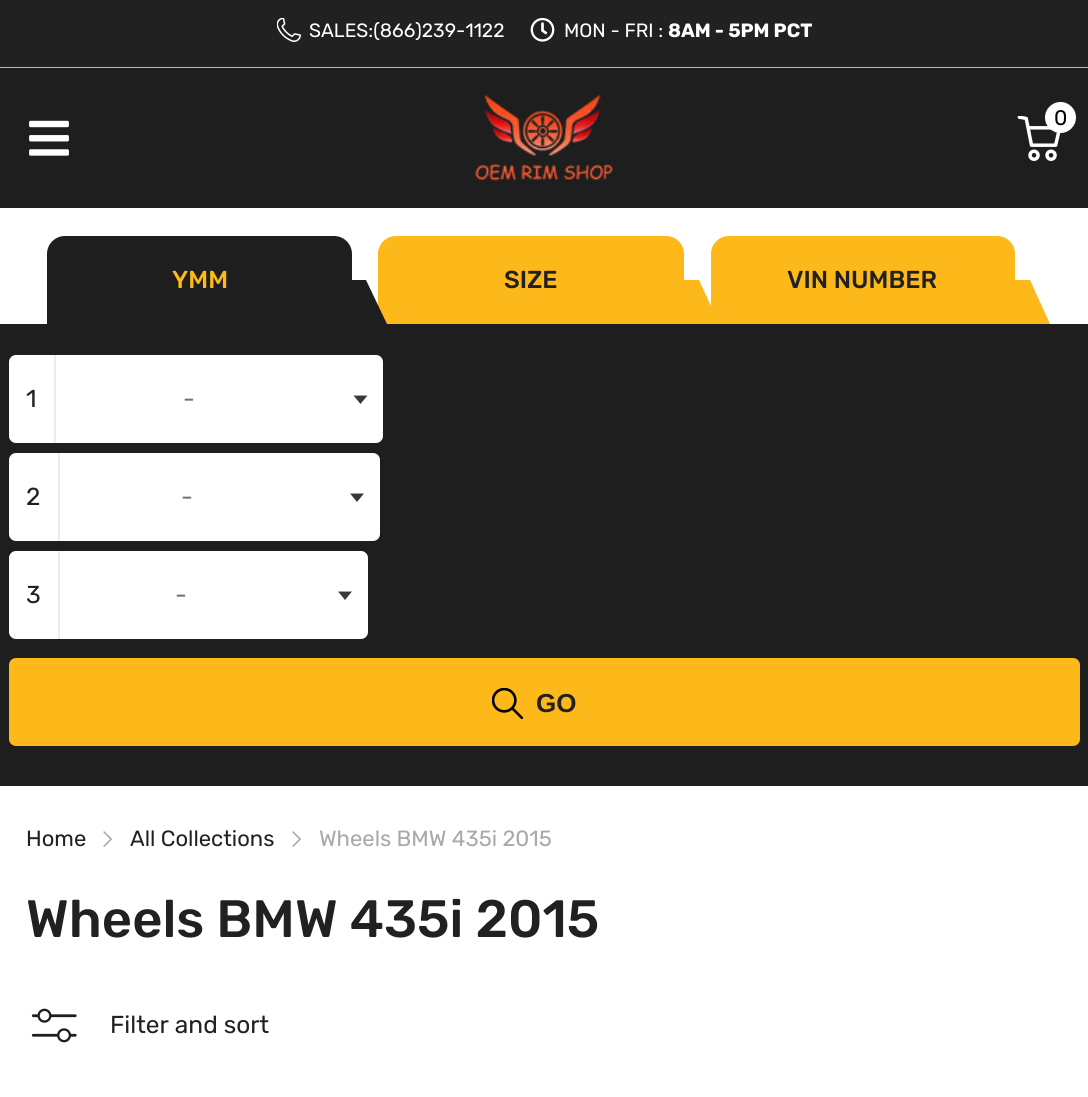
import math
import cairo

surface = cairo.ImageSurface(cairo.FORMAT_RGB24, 1088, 1097)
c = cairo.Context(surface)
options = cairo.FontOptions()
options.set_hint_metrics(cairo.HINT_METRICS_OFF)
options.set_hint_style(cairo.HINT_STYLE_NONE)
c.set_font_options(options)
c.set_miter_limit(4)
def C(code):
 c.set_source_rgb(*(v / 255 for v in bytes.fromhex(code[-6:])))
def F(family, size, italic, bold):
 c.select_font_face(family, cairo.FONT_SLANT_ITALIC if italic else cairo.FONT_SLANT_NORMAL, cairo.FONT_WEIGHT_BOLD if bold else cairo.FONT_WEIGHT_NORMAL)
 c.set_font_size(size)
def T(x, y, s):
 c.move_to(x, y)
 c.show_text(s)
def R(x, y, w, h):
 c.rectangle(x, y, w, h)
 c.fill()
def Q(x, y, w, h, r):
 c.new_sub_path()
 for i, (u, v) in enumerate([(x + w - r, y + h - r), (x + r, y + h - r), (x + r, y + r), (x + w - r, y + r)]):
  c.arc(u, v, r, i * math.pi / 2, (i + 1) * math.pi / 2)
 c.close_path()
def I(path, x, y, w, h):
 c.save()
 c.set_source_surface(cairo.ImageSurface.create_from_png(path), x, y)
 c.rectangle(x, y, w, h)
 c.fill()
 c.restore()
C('ffffff')
c.paint()
C('212121')
R(0,0,1088,67)
C('fdb819')
R(0,67,1088,1)
I('1.png',277,18,24,24)
F('Rubik',19.25,0,0)
C('ffffff')
T(309,37,'SALES:(866)239-1122')
I('2.png',530,18,25,24)
T(564,37,'MON - FRI :')
F('Rubik',19.25,0,1)
T(668,37,'8AM - 5PM PCT')
C('1e1e1e')
R(0,68,1088,140)
I('3.png',475,94,139,87)
I('4.png',1017,116,44,45)
C('ffffff')
c.arc(1060.5,117.5,15.5,0,2 * math.pi)
c.fill()
F('Rubik',21,0,0)
C('000000')
T(1054,125,'0')
I('5.png',29,120,40,36)
C('1e1e1e')
c.new_path()
c.move_to(65,236)
c.line_to(334,236)
c.curve_to(344,236,352,244,352,254)
c.line_to(352,324)
c.line_to(47,324)
c.line_to(47,254)
c.curve_to(47,244,55,236,65,236)
c.close_path()
c.fill()
F('Rubik Medium',24.5,0,0)
C('fdb819')
T(172,288,'YMM')
c.new_path()
c.move_to(396,236)
c.line_to(666,236)
c.curve_to(676,236,684,244,684,254)
c.line_to(684,324)
c.line_to(378,324)
c.line_to(378,254)
c.curve_to(378,244,386,236,396,236)
c.close_path()
c.fill()
C('1e1e1e')
c.new_path()
c.move_to(387,324)
c.line_to(317,324)
c.line_to(337,280)
c.line_to(366,280)
c.close_path()
c.fill()
C('212121')
T(504,288,'SIZE')
C('fdb819')
c.new_path()
c.move_to(729,236)
c.line_to(997,236)
c.curve_to(1007,236,1015,244,1015,254)
c.line_to(1015,324)
c.line_to(711,324)
c.line_to(711,254)
c.curve_to(711,244,719,236,729,236)
c.close_path()
c.fill()
c.new_path()
c.move_to(719,323)
c.line_to(719,324)
c.line_to(649,324)
c.line_to(670,280)
c.line_to(699,280)
c.close_path()
c.fill()
C('212121')
T(787,288,'VIN NUMBER')
C('fdb819')
c.new_path()
c.move_to(1050,324)
c.line_to(980,324)
c.line_to(1000,280)
c.line_to(1030,280)
c.close_path()
c.fill()
C('1e1e1e')
R(0,324,1088,462)
C('ffffff')
Q(9,355,374,88,7)
c.fill()
C('ececec')
R(54,355,2,88)
F('Rubik',24.5,0,0)
C('212121')
T(26,407,'1')
C('6c757d')
T(183,407,'-')
C('343a40')
c.new_path()
c.move_to(353.5,395.5)
c.line_to(367.5,395.5)
c.line_to(360.5,404)
c.close_path()
c.fill()
C('ffffff')
Q(9,453,371,88,7)
c.fill()
C('ececec')
R(58,453,2,88)
C('212121')
T(26,505,'2')
C('6c757d')
T(181,505,'-')
C('343a40')
c.new_path()
c.move_to(350,493.5)
c.line_to(364,493.5)
c.line_to(357,502)
c.close_path()
c.fill()
C('ffffff')
Q(9,551,359,88,7)
c.fill()
C('ececec')
R(58,551,2,88)
C('212121')
T(26,603,'3')
C('6c757d')
T(175,603,'-')
C('343a40')
c.new_path()
c.move_to(338,591.5)
c.line_to(352,591.5)
c.line_to(345,600)
c.close_path()
c.fill()
C('fdb819')
Q(9,658,1071,88,7)
c.fill()
I('6.png',492,688,31,31)
F('Liberation Sans',26,0,1)
C('212121')
T(536,712,'GO')
F('Rubik',22,0,0)
T(26,846,'Home')
I('7.png',103,831,9,16)
T(130,846,'All Collections')
I('7.png',292,831,9,16)
C('a9a9a9')
T(319,846,'Wheels BMW 435i 2015')
F('Rubik Medium',52.5,0,0)
C('212121')
T(26,937,'Wheels BMW 435i 2015')
I('8.png',31,1008,46,35)
F('Rubik',24.5,0,0)
T(110,1033,'Filter and sort')
surface.write_to_png('o.png')
